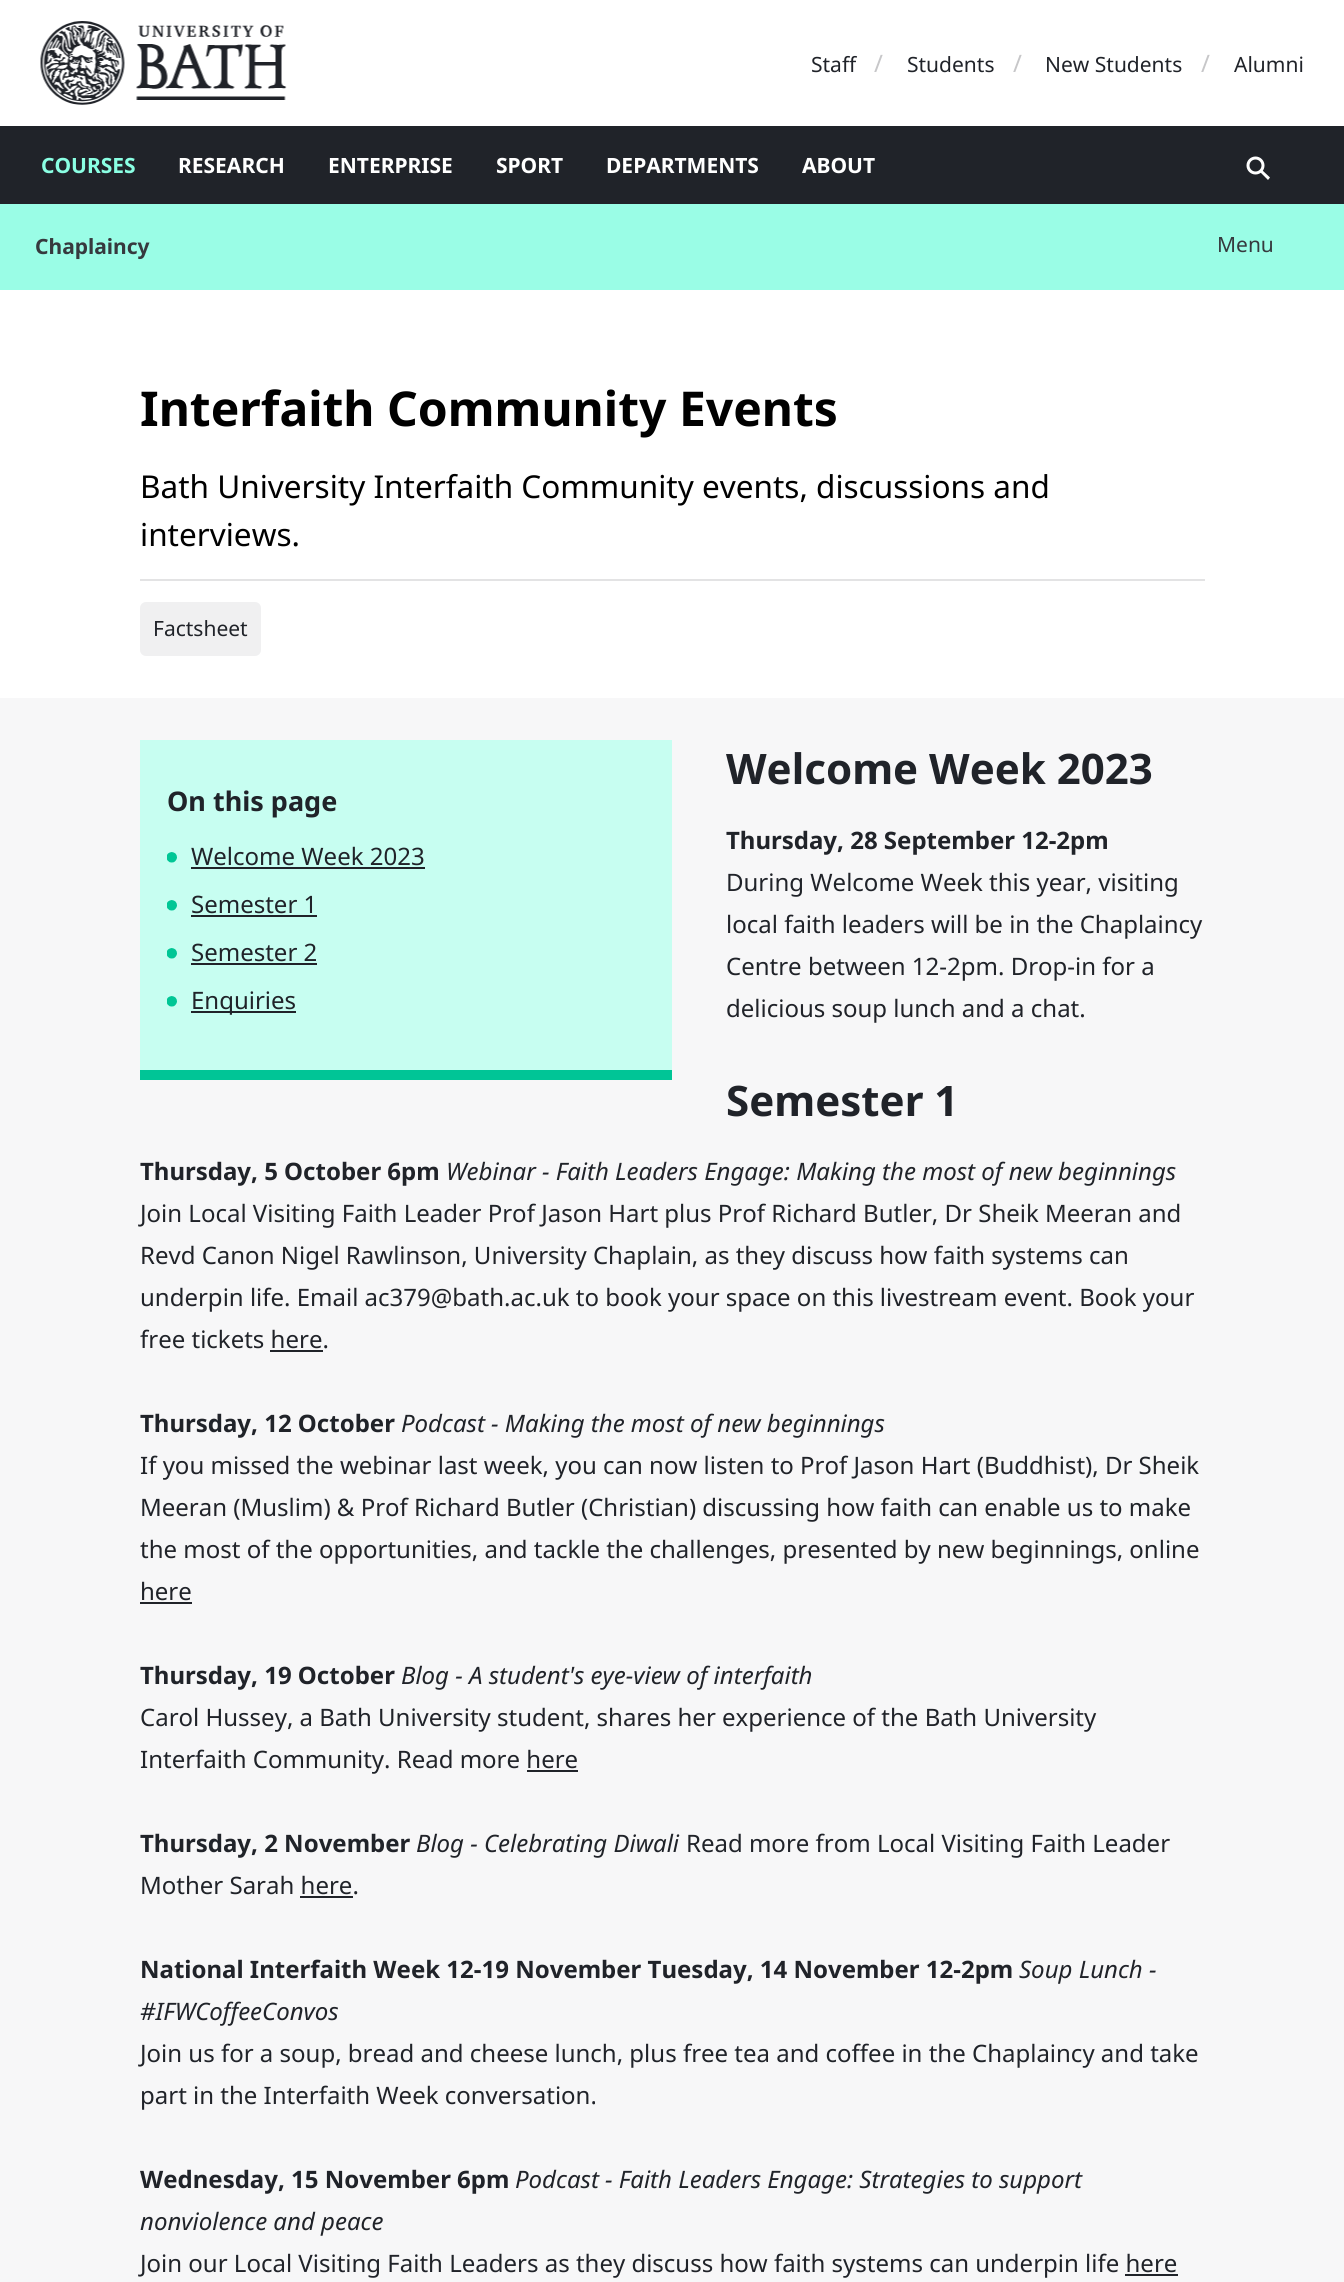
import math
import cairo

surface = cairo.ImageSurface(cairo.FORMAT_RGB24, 1344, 2282)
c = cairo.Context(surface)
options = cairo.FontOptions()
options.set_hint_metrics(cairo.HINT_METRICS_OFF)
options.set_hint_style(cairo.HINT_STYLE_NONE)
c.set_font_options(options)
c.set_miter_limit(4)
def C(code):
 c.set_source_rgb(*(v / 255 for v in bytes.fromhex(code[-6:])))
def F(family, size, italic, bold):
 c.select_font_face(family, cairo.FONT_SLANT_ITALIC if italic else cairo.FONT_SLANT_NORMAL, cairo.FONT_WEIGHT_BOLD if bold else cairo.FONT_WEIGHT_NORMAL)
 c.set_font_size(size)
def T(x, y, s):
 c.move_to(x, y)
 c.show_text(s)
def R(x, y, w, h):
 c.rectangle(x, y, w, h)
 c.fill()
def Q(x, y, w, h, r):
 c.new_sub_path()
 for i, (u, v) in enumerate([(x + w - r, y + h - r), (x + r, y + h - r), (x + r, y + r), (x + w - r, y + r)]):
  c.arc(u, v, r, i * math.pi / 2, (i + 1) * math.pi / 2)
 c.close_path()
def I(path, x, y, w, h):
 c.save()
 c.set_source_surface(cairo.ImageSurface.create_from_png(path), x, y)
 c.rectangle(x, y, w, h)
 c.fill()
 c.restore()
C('ffffff')
c.paint()
I('1.png',40,21,247,84)
F('Noto Sans',21,0,0)
C('202329')
T(811,72,'Staff')
F('Noto Sans',24,0,0)
C('c7c7c9')
T(874,72,'/')
F('Noto Sans',21,0,0)
C('202329')
T(907,72,'Students')
F('Noto Sans',24,0,0)
C('c7c7c9')
T(1013,72,'/')
F('Noto Sans',21,0,0)
C('202329')
T(1045,72,'New Students')
F('Noto Sans',24,0,0)
C('c7c7c9')
T(1201,72,'/')
F('Noto Sans',21,0,0)
C('202329')
T(1234,72,'Alumni')
R(0,126,1344,78)
F('Noto Sans',21,0,1)
C('8affe3')
T(41,173,'COURSES')
C('ffffff')
T(178,173,'RESEARCH')
T(328,173,'ENTERPRISE')
T(496,173,'SPORT')
T(606,173,'DEPARTMENTS')
T(802,173,'ABOUT')
c.new_path()
c.arc(1255.5,165.5,7.5,0,2 * math.pi)
c.set_line_width(3)
c.stroke()
c.set_fill_rule(cairo.FILL_RULE_EVEN_ODD)
c.new_path()
c.move_to(1262,170)
c.line_to(1270,177.5)
c.line_to(1268,180)
c.line_to(1260,172)
c.close_path()
c.fill()
C('9afde6')
R(0,204,1344,86)
C('36393e')
T(35,254,'Chaplaincy')
F('Noto Sans',21,0,0)
T(1217,252,'Menu')
F('Noto Sans',48,0,1)
C('000000')
T(140,426,'Interfaith Community Events')
F('Noto Sans',31.5,0,0)
T(140,498,'Bath University Interfaith Community events, discussions and')
T(140,546,'interviews.')
C('e3e3e4')
R(140,579,1065,2)
C('f0f0f1')
Q(140,602,121,54,6)
c.fill()
F('Noto Sans',21,0,0)
C('202329')
T(153,636,'Factsheet')
C('f7f7f8')
R(0,698,1344,1584)
F('Noto Sans',42,0,1)
C('202329')
T(726,784,'Welcome Week 2023')
C('c7fef1')
R(140,740,532,330)
C('00c596')
R(140,1070,532,10)
F('Noto Sans',27,0,1)
C('202329')
T(167,811,'On this page')
I('2.png',167,852,10,11)
F('Noto Sans',24,0,0)
T(191,865,'Welcome Week 2023')
R(191,867,234,2)
I('2.png',167,900,10,11)
T(191,913,'Semester 1')
R(191,915,126,2)
I('2.png',167,948,10,11)
T(191,961,'Semester 2')
R(191,963,126,2)
I('2.png',167,996,10,11)
R(191,1011,105,2)
T(191,1009,'Enquiries')
F('Noto Sans',24,0,1)
T(726,849,'Thursday, 28 September 12-2pm')
F('Noto Sans',24,0,0)
T(726,891,'During Welcome Week this year, visiting')
T(726,933,'local faith leaders will be in the Chaplaincy')
T(726,975,'Centre between 12-2pm. Drop-in for a')
T(726,1017,'delicious soup lunch and a chat.')
F('Noto Sans',42,0,1)
T(726,1116,'Semester 1')
F('Noto Sans',24,0,1)
T(140,1180,'Thursday, 5 October 6pm')
F('Noto Sans',24,1,0)
T(446,1180,'Webinar - Faith Leaders Engage: Making the most of new beginnings')
F('Noto Sans',24,0,0)
T(140,1222,'Join Local Visiting Faith Leader Prof Jason Hart plus Prof Richard Butler, Dr Sheik Meeran and')
T(140,1264,'Revd Canon Nigel Rawlinson, University Chaplain, as they discuss how faith systems can')
T(140,1306,'underpin life. Email ac379@bath.ac.uk to book your space on this livestream event. Book your')
T(140,1348,'free tickets here.')
R(270,1350,53,2)
F('Noto Sans',24,0,1)
T(140,1432,'Thursday, 12 October')
F('Noto Sans',24,1,0)
T(401,1432,'Podcast - Making the most of new beginnings')
F('Noto Sans',24,0,0)
T(140,1474,'If you missed the webinar last week, you can now listen to Prof Jason Hart (Buddhist), Dr Sheik')
T(140,1516,'Meeran (Muslim) & Prof Richard Butler (Christian) discussing how faith can enable us to make')
T(140,1558,'the most of the opportunities, and tackle the challenges, presented by new beginnings, online')
T(140,1600,'here')
R(140,1602,52,2)
F('Noto Sans',24,0,1)
T(140,1684,'Thursday, 19 October')
F('Noto Sans',24,1,0)
T(401,1684,'Blog - A student\'s eye-view of interfaith')
F('Noto Sans',24,0,0)
T(140,1726,'Carol Hussey, a Bath University student, shares her experience of the Bath University')
T(140,1768,'Interfaith Community. Read more here')
R(527,1770,51,2)
F('Noto Sans',24,0,1)
T(140,1852,'Thursday, 2 November')
F('Noto Sans',24,1,0)
T(416,1852,'Blog - Celebrating Diwali')
F('Noto Sans',24,0,0)
T(686,1852,'Read more from Local Visiting Faith Leader')
T(140,1894,'Mother Sarah here.')
R(300,1896,53,2)
F('Noto Sans',24,0,1)
T(140,1978,'National Interfaith Week 12-19 November Tuesday, 14 November 12-2pm')
F('Noto Sans',24,1,0)
T(1019,1978,'Soup Lunch -')
T(140,2020,'#IFWCoffeeConvos')
F('Noto Sans',24,0,0)
T(140,2062,'Join us for a soup, bread and cheese lunch, plus free tea and coffee in the Chaplaincy and take')
T(140,2104,'part in the Interfaith Week conversation.')
F('Noto Sans',24,0,1)
T(140,2188,'Wednesday, 15 November 6pm')
F('Noto Sans',24,1,0)
T(515,2188,'Podcast - Faith Leaders Engage: Strategies to support')
T(140,2230,'nonviolence and peace')
F('Noto Sans',24,0,0)
T(140,2272,'Join our Local Visiting Faith Leaders as they discuss how faith systems can underpin life here')
R(1125,2274,53,2)
surface.write_to_png('o.png')
